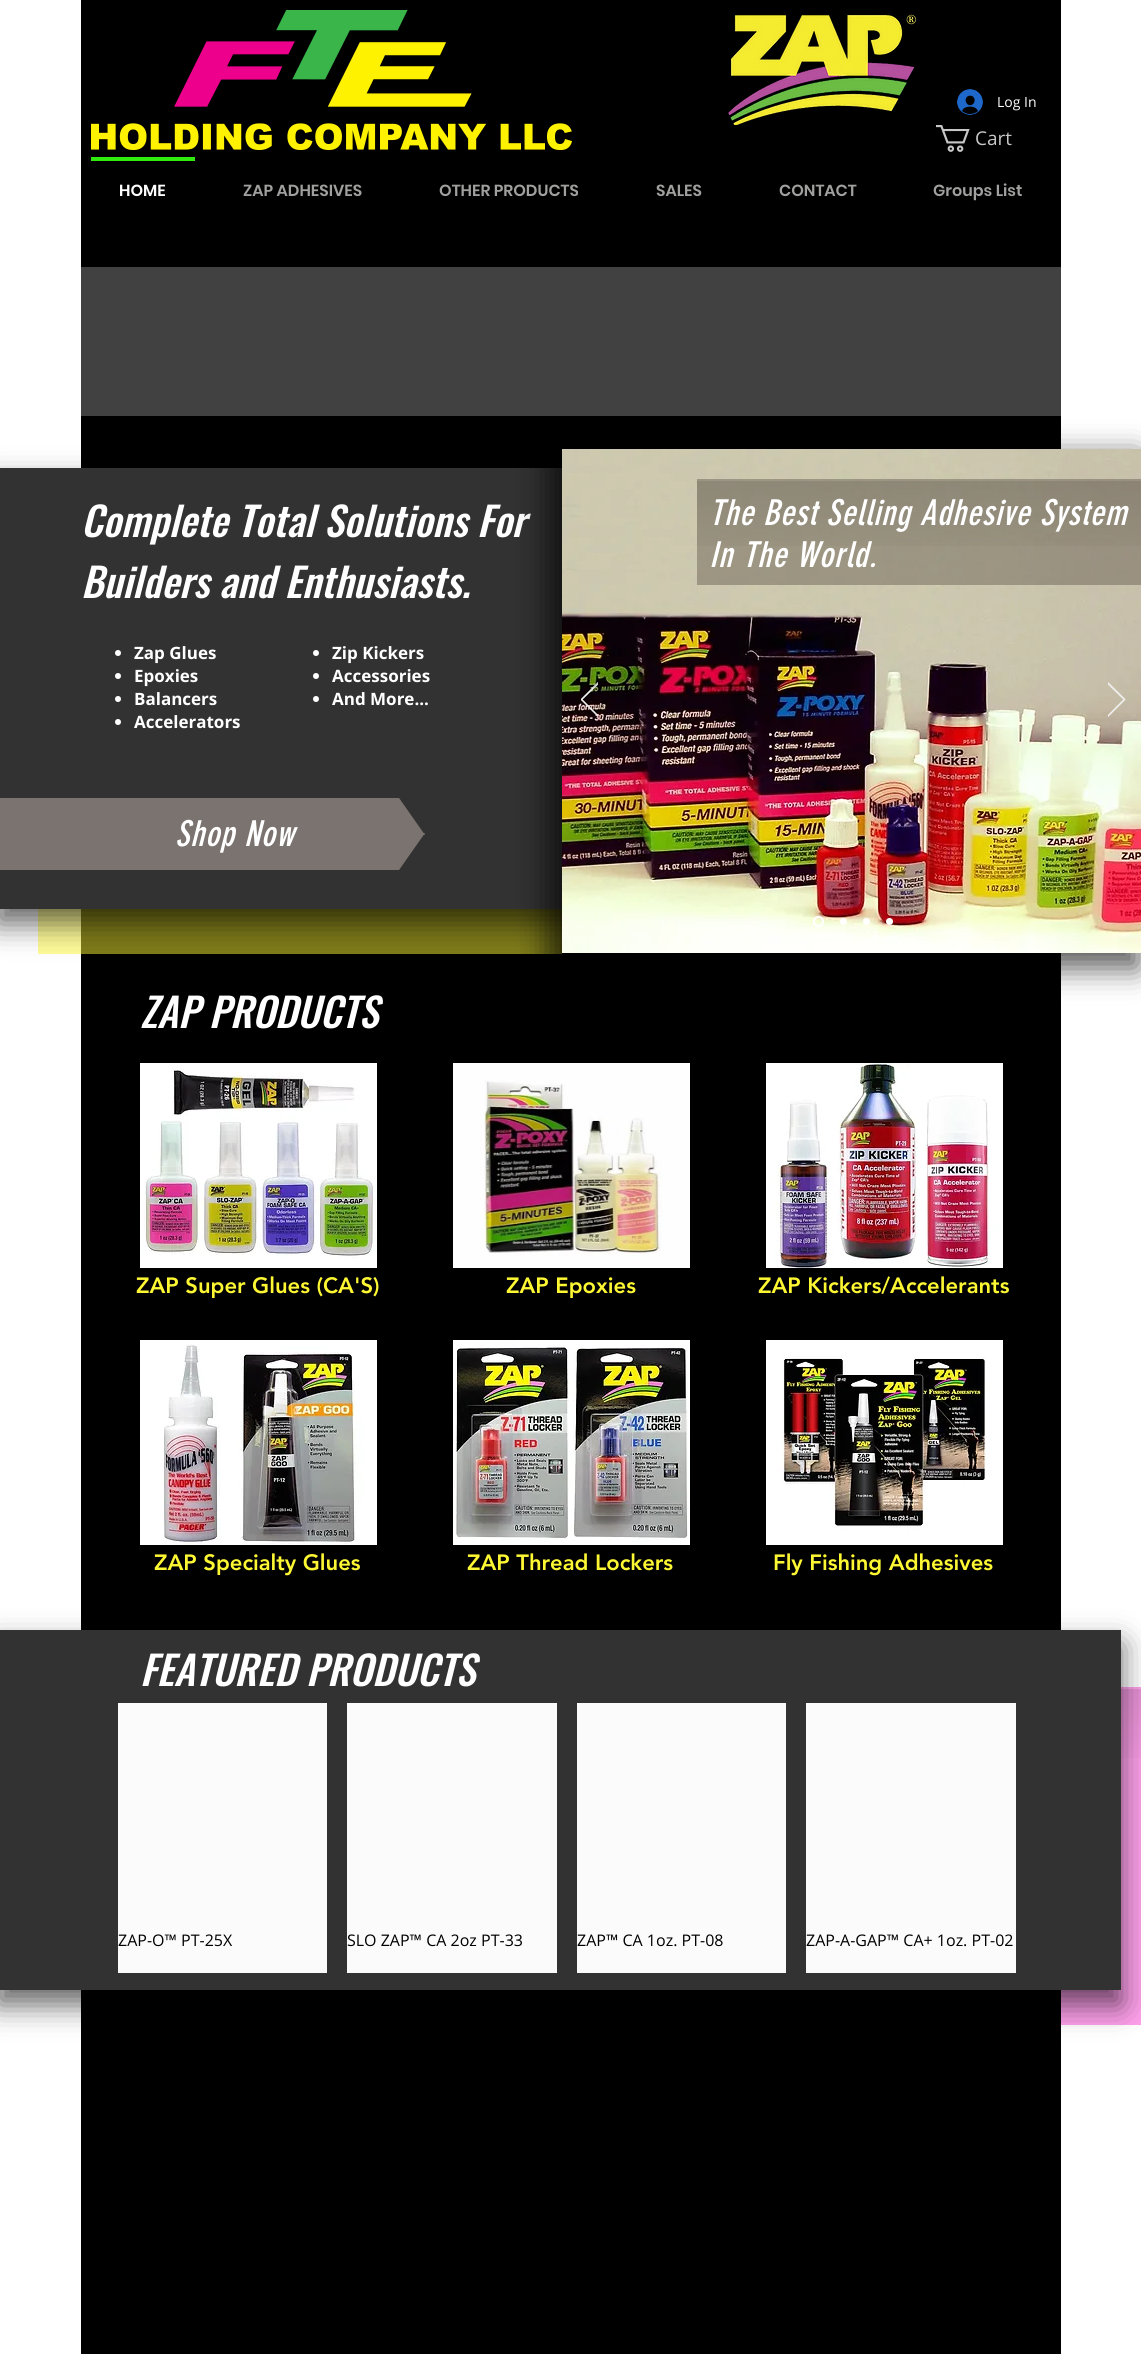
import math
import cairo

surface = cairo.ImageSurface(cairo.FORMAT_RGB24, 1141, 2354)
c = cairo.Context(surface)
options = cairo.FontOptions()
options.set_hint_metrics(cairo.HINT_METRICS_OFF)
options.set_hint_style(cairo.HINT_STYLE_NONE)
c.set_font_options(options)
c.set_miter_limit(4)
def C(code):
 c.set_source_rgb(*(v / 255 for v in bytes.fromhex(code[-6:])))
def F(family, size, italic, bold):
 c.select_font_face(family, cairo.FONT_SLANT_ITALIC if italic else cairo.FONT_SLANT_NORMAL, cairo.FONT_WEIGHT_BOLD if bold else cairo.FONT_WEIGHT_NORMAL)
 c.set_font_size(size)
def T(x, y, s):
 c.move_to(x, y)
 c.show_text(s)
def L(x, y, s, letter, word):
 c.move_to(x, y)
 for ch in s:
  c.show_text(ch)
  c.rel_move_to(letter + word * (ch == ' '), 0)
def R(x, y, w, h):
 c.rectangle(x, y, w, h)
 c.fill()
def Q(x, y, w, h, r):
 c.new_sub_path()
 for i, (u, v) in enumerate([(x + w - r, y + h - r), (x + r, y + h - r), (x + r, y + r), (x + w - r, y + r)]):
  c.arc(u, v, r, i * math.pi / 2, (i + 1) * math.pi / 2)
 c.close_path()
def S(x, y, w, h, r, blur, alpha):
 c.push_group_with_content(cairo.CONTENT_ALPHA)
 c.set_operator(cairo.OPERATOR_SOURCE)
 for i in range(15, -16, -2):
  e = blur * i / 6
  if min(w, h) + 2 * e > 0:
   c.set_source_rgba(0, 0, 0, alpha * math.erfc((i - 1) / 8.5) / 2)
   Q(x - e, y - e, w + 2 * e, h + 2 * e, max(0, min(r + e + blur * .6, min(w, h) / 2 + e)))
   c.fill()
 c.mask(c.pop_group())
def I(path, x, y, w, h):
 c.save()
 c.set_source_surface(cairo.ImageSurface.create_from_png(path), x, y)
 c.rectangle(x, y, w, h)
 c.fill()
 c.restore()
C('ffffff')
c.paint()
C('fefb99')
R(38,909,43,45)
C('000000')
R(81,0,980,2354)
I('1.png',957,89,26,26)
F('Open Sans',14,0,0)
C('ffffff')
T(997,107,'Log In')
I('2.png',91,10,481,140)
I('3.png',728,14,189,111)
I('4.png',936,125,34,27)
F('Open Sans',19,0,0)
C('c7c7c7')
T(975,145,'Cart')
C('31eb10')
R(91,157,104,4)
F('Poppins SemiBold',16,0,0)
C('ffffff')
T(119,196,'HOME')
C('a0a09f')
T(243,196,'ZAP ADHESIVES')
T(439,196,'OTHER PRODUCTS')
T(656,196,'SALES')
T(779,196,'CONTACT')
T(933,196,'Groups List')
C('7f7c1a')
R(81,909,481,45)
C('000000')
S(-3,483,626,441,0,15,.6)
C('323232')
R(0,468,562,441)
F('Oswald Medium',40,1,0)
C('ffffff')
T(81,537,'Complete Total Solutions For')
T(81,598,'Builders and Enthusiasts.')
c.new_path()
c.arc(118,653,3,0,2 * math.pi)
c.fill()
F('Open Sans',17,0,1)
T(134,659,'Zap Glues')
c.new_path()
c.arc(118,676,3,0,2 * math.pi)
c.fill()
T(134,682,'Epoxies')
c.new_path()
c.arc(118,699,3,0,2 * math.pi)
c.fill()
T(134,705,'Balancers')
c.new_path()
c.arc(118,722,3,0,2 * math.pi)
c.fill()
T(134,728,'Accelerators')
c.new_path()
c.arc(316,653,3,0,2 * math.pi)
c.fill()
T(332,659,'Zip Kickers')
c.new_path()
c.arc(316,676,3,0,2 * math.pi)
c.fill()
T(332,682,'Accessories')
c.new_path()
c.arc(316,699,3,0,2 * math.pi)
c.fill()
T(332,705,'And More...')
c.save()
c.rectangle(0,798,425,72)
c.clip()
C('7b736f')
c.new_path()
c.move_to(-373,833)
c.line_to(425,833)
c.line_to(75,1332)
c.line_to(-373,1332)
c.close_path()
c.fill()
c.new_path()
c.move_to(425,835)
c.line_to(-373,835)
c.line_to(-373,336)
c.line_to(75,336)
c.close_path()
c.fill()
c.restore()
F('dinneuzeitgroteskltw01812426',35,1,0)
L(175,846,'Shop Now',.7,0)
C('414141')
R(81,267,980,149)
C('000000')
S(547,456,591,512,0,15,.65)
I('5.png',562,449,579,504)
c.set_source_rgba(0.29,0.247,0.216,0.36)
R(697,479,444,106)
I('6.png',697,481,444,65)
C('ffffff')
L(709,525,'The Best Selling Adhesive System',.7,0)
L(709,567,'In The World.',.7,0)
c.save()
c.rectangle(581,682,17,35)
c.clip()
c.new_path()
c.move_to(598.5,717)
c.line_to(581,699.5)
c.line_to(598.5,682)
c.line_to(599,683)
c.line_to(582,699.5)
c.line_to(599,716.5)
c.close_path()
C('f0f0f0')
c.set_line_width(.9)
c.stroke()
c.restore()
c.save()
c.rectangle(1108,682,18,35)
c.clip()
c.new_path()
c.move_to(1107.5,717)
c.line_to(1125,699.5)
c.line_to(1107.5,682)
c.line_to(1107,683)
c.line_to(1124,699.5)
c.line_to(1107,716.5)
c.close_path()
C('f0f0f0')
c.set_line_width(.9)
c.stroke()
c.restore()
c.arc(818.5,921.5,4.5,0,2 * math.pi)
c.stroke()
c.arc(843.5,921.5,3.5,0,2 * math.pi)
c.fill()
c.arc(866.5,921.5,3.5,0,2 * math.pi)
c.fill()
c.arc(889.5,921.5,3.5,0,2 * math.pi)
c.fill()
F('Oswald Medium',40,1,0)
T(140,1028,'ZAP PRODUCTS')
C('ffa0eb')
R(1061,1687,80,338)
I('13.png',1121,1689,20,69)
C('000000')
S(-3,1645,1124,360,0,15,.6)
C('323232')
R(0,1630,1121,360)
C('ffffff')
T(140,1686,'FEATURED PRODUCTS')
C('fbfbfb')
R(118,1703,209,270)
F('Open Sans',16,0,0)
C('000000')
T(118,1946,'ZAP-O™ PT-25X')
C('fbfbfb')
R(347,1703,210,270)
C('000000')
T(347,1946,'SLO ZAP™ CA 2oz PT-33')
C('fbfbfb')
R(577,1703,209,270)
C('000000')
T(577,1946,'ZAP™ CA 1oz. PT-08')
C('fbfbfb')
R(806,1703,210,270)
C('000000')
T(806,1946,'ZAP-A-GAP™ CA+ 1oz. PT-02')
I('7.png',140,1063,237,205)
F('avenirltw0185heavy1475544 Black',22,0,0)
C('fdf733')
T(136,1293,'ZAP Super Glues (CA\'S)')
I('8.png',140,1340,237,205)
T(154,1570,'ZAP Specialty Glues')
I('9.png',453,1063,237,205)
T(506,1293,'ZAP Epoxies')
I('10.png',453,1340,237,205)
T(467,1570,'ZAP Thread Lockers')
I('11.png',766,1063,237,205)
T(758,1293,'ZAP Kickers/Accelerants')
I('12.png',766,1340,237,205)
T(773,1570,'Fly Fishing Adhesives')
surface.write_to_png('o.png')
